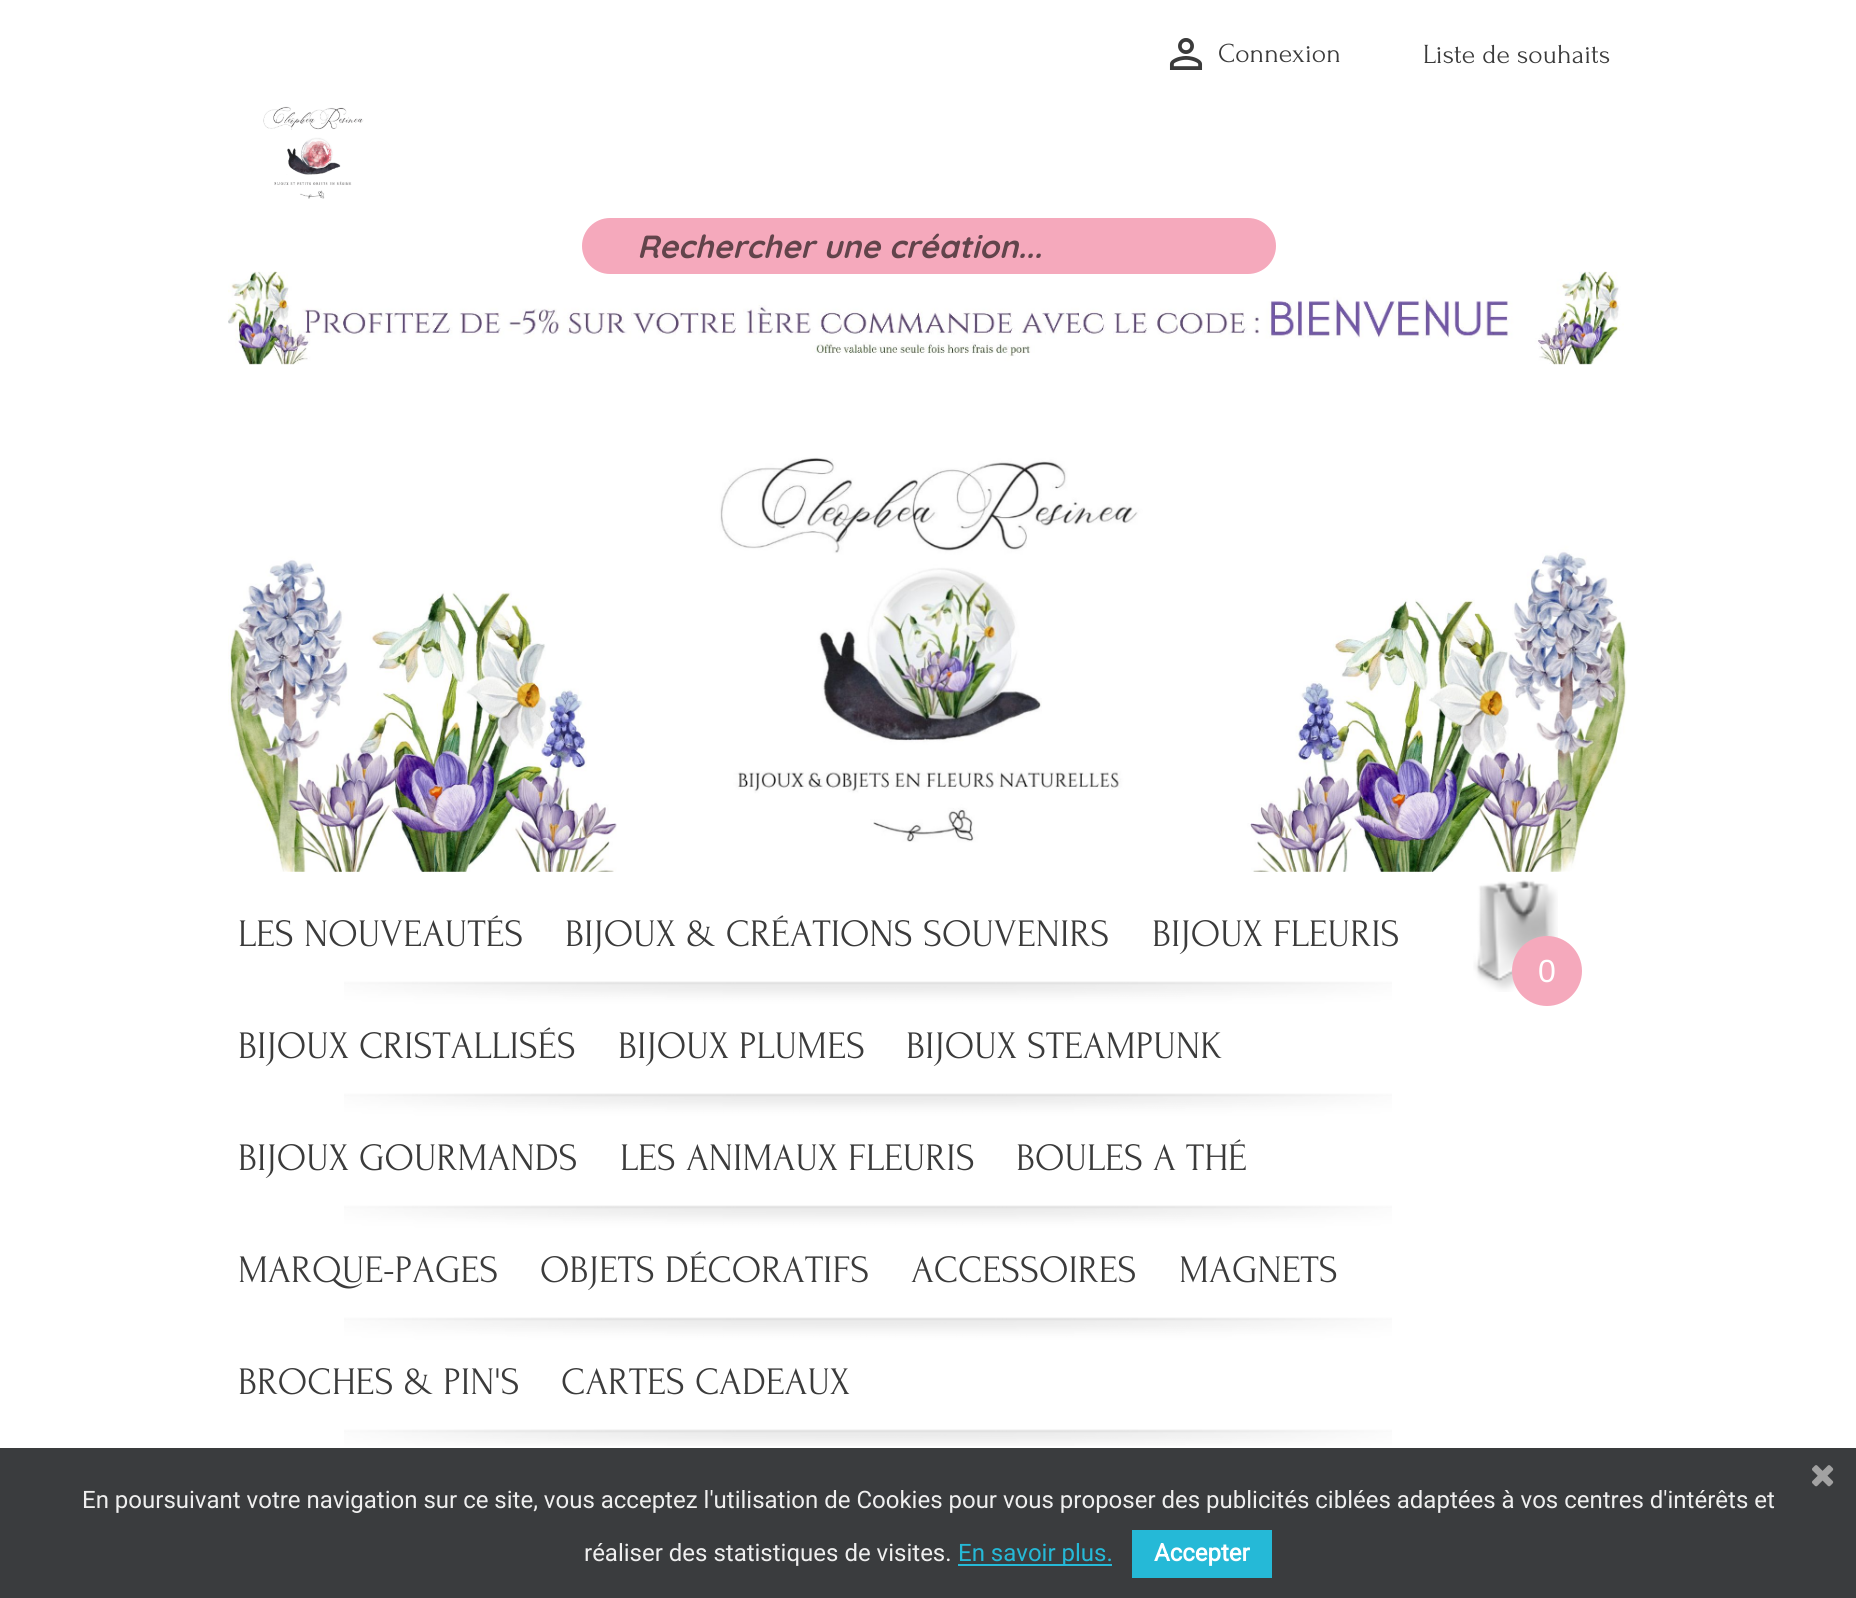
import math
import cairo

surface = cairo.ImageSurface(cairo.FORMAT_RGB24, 1856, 1598)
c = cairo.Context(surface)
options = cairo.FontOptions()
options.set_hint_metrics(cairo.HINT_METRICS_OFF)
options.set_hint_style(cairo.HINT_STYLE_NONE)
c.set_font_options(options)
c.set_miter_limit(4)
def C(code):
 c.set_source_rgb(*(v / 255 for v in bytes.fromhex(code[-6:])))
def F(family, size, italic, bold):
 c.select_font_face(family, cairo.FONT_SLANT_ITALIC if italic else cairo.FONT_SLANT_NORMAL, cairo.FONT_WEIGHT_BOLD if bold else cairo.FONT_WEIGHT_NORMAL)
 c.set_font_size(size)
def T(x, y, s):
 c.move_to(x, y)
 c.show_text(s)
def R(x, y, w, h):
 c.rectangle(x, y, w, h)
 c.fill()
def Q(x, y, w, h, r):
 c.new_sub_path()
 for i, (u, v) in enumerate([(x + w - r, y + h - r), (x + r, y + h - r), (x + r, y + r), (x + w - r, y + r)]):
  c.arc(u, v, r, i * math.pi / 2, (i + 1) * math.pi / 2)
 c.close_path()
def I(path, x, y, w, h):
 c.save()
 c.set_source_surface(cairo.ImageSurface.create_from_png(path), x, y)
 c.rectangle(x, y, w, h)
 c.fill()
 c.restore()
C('ffffff')
c.paint()
C('3a3c3e')
R(0,1448,1856,150)
I('1.png',1169,38,34,32)
F('Forum',27.5,0,0)
C('3b3b3b')
T(1218,62,'Connexion')
T(1423,63,'Liste de souhaits')
I('2.png',263,106,101,93)
I('3.png',228,271,1396,94)
C('f5a9bc')
Q(582,218,694,56,28)
c.fill()
F('Quicksand',32,1,1)
C('62444b')
T(637,258,'Rechercher une création...')
I('4.png',228,457,1399,415)
I('5.png',344,981,1048,465)
F('Forum',38.75,0,0)
C('3b3b3b')
T(238,946,'LES NOUVEAUTÉS')
T(565,946,'BIJOUX & CRÉATIONS SOUVENIRS')
T(1152,946,'BIJOUX FLEURIS')
T(238,1058,'BIJOUX CRISTALLISÉS')
T(618,1058,'BIJOUX PLUMES')
T(906,1058,'BIJOUX STEAMPUNK')
T(238,1170,'BIJOUX GOURMANDS')
T(620,1170,'LES ANIMAUX FLEURIS')
T(1016,1170,'BOULES A THÉ')
T(238,1282,'MARQUE-PAGES')
T(540,1282,'OBJETS DÉCORATIFS')
T(911,1282,'ACCESSOIRES')
T(1179,1282,'MAGNETS')
T(238,1394,'BROCHES & PIN\'S')
T(561,1394,'CARTES CADEAUX')
I('6.png',1473,880,85,112)
C('f5a9bc')
c.arc(1547,971,35,0,2 * math.pi)
c.fill()
F('Liberation Sans',32,0,0)
C('ffffff')
T(1538,982,'0')
I('7.png',1812,1465,22,22)
F('Roboto',24,0,0)
C('efefef')
T(82,1508,'En poursuivant votre navigation sur ce site, vous acceptez l\'utilisation de Cookies pour vous proposer des publicités ciblées adaptées à vos centres d\'intérêts et')
T(584,1561,'réaliser des statistiques de visites.')
C('25b9d7')
R(958,1564,154,2)
T(958,1561,'En savoir plus.')
R(1132,1530,140,48)
F('Roboto',24,0,1)
C('ffffff')
T(1154,1561,'Accepter')
surface.write_to_png('o.png')
